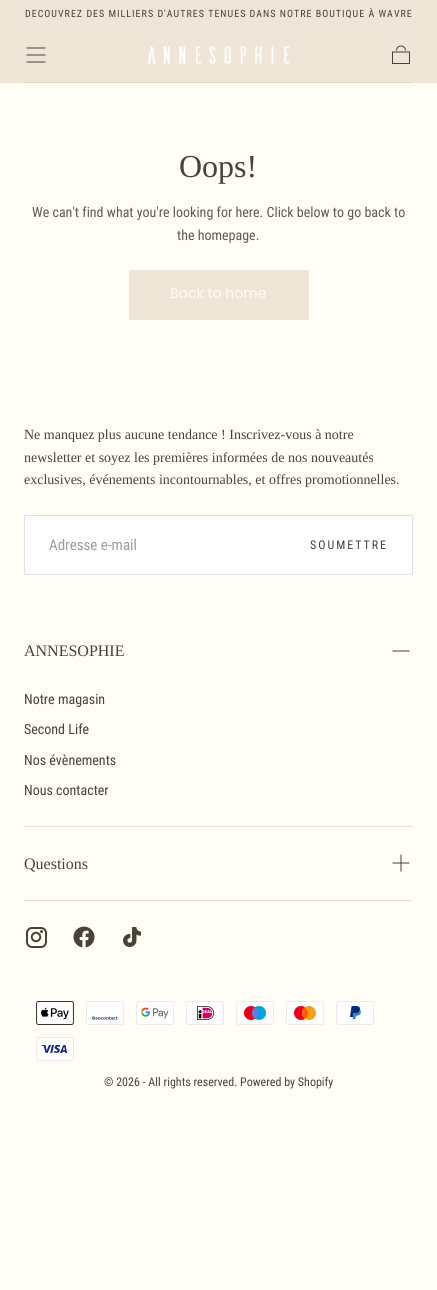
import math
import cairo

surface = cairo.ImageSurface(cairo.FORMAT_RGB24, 437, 1290)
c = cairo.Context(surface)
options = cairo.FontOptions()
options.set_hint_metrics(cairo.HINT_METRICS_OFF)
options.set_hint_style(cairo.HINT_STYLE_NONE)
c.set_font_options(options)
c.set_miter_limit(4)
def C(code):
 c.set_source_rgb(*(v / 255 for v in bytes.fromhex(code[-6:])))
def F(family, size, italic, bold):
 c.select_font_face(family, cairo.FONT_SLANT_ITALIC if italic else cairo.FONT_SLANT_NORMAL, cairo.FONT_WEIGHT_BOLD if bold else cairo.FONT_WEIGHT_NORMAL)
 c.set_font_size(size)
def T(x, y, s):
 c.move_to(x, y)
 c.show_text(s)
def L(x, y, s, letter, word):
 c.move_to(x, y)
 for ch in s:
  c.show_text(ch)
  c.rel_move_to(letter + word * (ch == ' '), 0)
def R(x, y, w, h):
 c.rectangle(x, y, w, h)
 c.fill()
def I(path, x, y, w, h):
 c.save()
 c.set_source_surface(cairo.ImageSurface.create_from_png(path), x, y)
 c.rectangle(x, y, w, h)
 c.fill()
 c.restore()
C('fffdf6')
c.paint()
C('efe6d8')
R(0,0,437,83)
F('Roboto Condensed',10,0,0)
C('484237')
L(25,17,'DECOUVREZ DES MILLIERS D\'AUTRES TENUES DANS NOTRE BOUTIQUE À WAVRE',1,0)
I('1.png',26,47,20,16)
I('2.png',148,46,142,18)
I('3.png',392,45,18,19)
C('ded6c8')
R(24,82,389,1)
F('Liberation Serif',32,0,0)
C('484237')
T(179,177,'Oops!')
F('Roboto Condensed',14,0,0)
C('5e5a59')
T(32,217,'We can\'t find what you\'re looking for here. Click below to go back to')
T(177,240,'the homepage.')
C('efe6d8')
R(129,270,180,50)
F('Poppins',14,0,0)
C('fffdf6')
T(170,298,'Back to home')
F('Liberation Serif',14,0,0)
C('484237')
T(24,439,'Ne manquez plus aucune tendance ! Inscrivez-vous à notre')
T(24,462,'newsletter et soyez les premières informées de nos nouveautés')
T(24,484,'exclusives, événements incontournables, et offres promotionnelles.')
C('ffffff')
c.rectangle(24.5,515.5,388,59)
c.fill_preserve()
C('e6e2e1')
c.set_line_width(1)
c.stroke()
F('Roboto Condensed',15,0,0)
C('9e9a99')
T(49,550,'Adresse e-mail')
F('Roboto Condensed',12,0,0)
C('484237')
L(310,549,'SOUMETTRE',2,0)
C('e6e2e1')
R(24,826,389,1)
F('Liberation Serif',16,0,0)
C('484237')
T(24,656,'ANNESOPHIE')
c.new_path()
c.move_to(393,651)
c.line_to(409,651)
c.set_line_cap(cairo.LINE_CAP_SQUARE)
c.stroke()
F('Roboto Condensed',14,0,0)
T(24,704,'Notre magasin')
T(24,734,'Second Life')
T(24,765,'Nos évènements')
T(24,795,'Nous contacter')
C('e6e2e1')
R(24,900,389,1)
F('Liberation Serif',16,0,0)
C('484237')
T(24,869,'Questions')
I('4.png',392,854,18,18)
I('5.png',26,927,21,21)
I('6.png',73,926,22,22)
I('7.png',123,927,18,20)
I('8.png',36,1001,38,24)
I('9.png',86,1001,38,24)
I('10.png',136,1001,38,24)
I('11.png',186,1001,38,24)
I('12.png',236,1001,38,24)
I('13.png',286,1001,38,24)
I('14.png',336,1001,38,24)
I('15.png',36,1037,38,24)
F('Roboto Condensed',12,0,0)
T(104,1086,'© 2026 - All rights reserved. Powered by Shopify')
surface.write_to_png('o.png')
